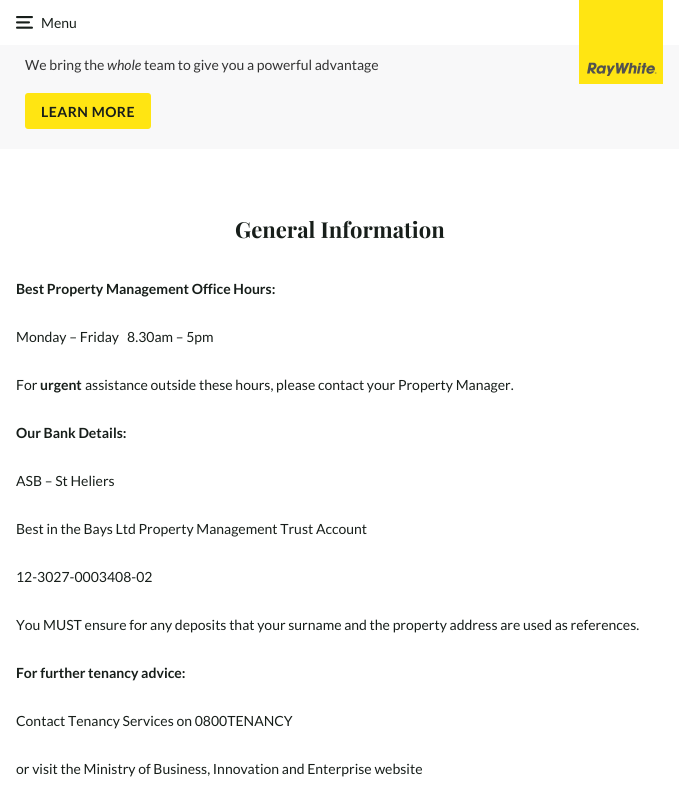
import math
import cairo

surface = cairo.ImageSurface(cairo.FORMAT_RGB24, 679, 786)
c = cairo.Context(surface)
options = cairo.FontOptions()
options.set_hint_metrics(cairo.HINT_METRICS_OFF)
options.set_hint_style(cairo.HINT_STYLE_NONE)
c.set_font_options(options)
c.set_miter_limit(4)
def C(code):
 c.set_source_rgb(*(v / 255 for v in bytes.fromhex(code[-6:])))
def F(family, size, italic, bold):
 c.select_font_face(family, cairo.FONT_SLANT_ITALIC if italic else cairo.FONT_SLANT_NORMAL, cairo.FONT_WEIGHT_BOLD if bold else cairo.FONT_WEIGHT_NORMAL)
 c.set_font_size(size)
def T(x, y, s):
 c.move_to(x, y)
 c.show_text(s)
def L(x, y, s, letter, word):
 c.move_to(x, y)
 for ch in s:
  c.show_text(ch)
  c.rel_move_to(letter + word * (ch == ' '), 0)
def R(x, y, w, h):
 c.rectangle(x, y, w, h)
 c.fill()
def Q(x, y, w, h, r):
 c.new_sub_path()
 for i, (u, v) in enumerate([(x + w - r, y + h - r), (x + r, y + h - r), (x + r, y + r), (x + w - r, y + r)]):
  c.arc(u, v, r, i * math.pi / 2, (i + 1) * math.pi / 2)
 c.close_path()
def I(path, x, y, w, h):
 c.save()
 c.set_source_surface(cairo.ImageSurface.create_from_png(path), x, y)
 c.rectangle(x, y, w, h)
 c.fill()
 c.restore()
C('ffffff')
c.paint()
I('1.png',16,16,17,13)
F('Lato',14,0,0)
C('171e1a')
T(41,28,'Menu')
C('f8f8f9')
R(0,45,679,104)
I('2.png',579,0,84,84)
C('333333')
T(25,70,'We bring the')
F('Lato',14,1,0)
T(107,70,'whole')
F('Lato',14,0,0)
T(144,70,'team to give you a powerful advantage')
C('ffe512')
Q(25,93,126,36,3)
c.fill()
F('Lato',14,0,1)
C('171e1a')
L(41,117,'LEARN MORE',.5,0)
F('Playfair Display',22,0,1)
T(235,238,'General Information')
F('Lato',14,0,1)
T(16,294,'Best Property Management Office Hours:')
F('Lato',14,0,0)
T(16,342,'Monday – Friday   8.30am – 5pm')
T(16,390,'For')
F('Lato',14,0,1)
T(40,390,'urgent')
F('Lato',14,0,0)
T(85,390,'assistance outside these hours, please contact your Property Manager.')
F('Lato',14,0,1)
T(16,438,'Our Bank Details:')
F('Lato',14,0,0)
T(16,486,'ASB – St Heliers')
T(16,534,'Best in the Bays Ltd Property Management Trust Account')
T(16,582,'12-3027-0003408-02')
T(16,630,'You MUST ensure for any deposits that your surname and the property address are used as references.')
F('Lato',14,0,1)
T(16,678,'For further tenancy advice:')
F('Lato',14,0,0)
T(16,726,'Contact Tenancy Services on 0800TENANCY')
T(16,774,'or visit the Ministry of Business, Innovation and Enterprise website')
surface.write_to_png('o.png')
